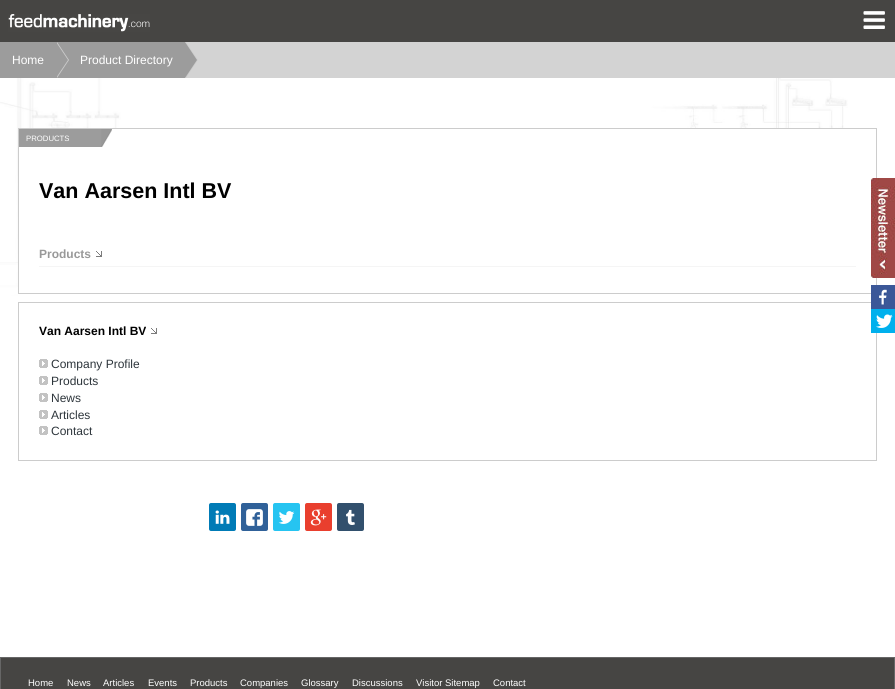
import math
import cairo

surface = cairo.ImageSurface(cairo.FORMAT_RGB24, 895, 689)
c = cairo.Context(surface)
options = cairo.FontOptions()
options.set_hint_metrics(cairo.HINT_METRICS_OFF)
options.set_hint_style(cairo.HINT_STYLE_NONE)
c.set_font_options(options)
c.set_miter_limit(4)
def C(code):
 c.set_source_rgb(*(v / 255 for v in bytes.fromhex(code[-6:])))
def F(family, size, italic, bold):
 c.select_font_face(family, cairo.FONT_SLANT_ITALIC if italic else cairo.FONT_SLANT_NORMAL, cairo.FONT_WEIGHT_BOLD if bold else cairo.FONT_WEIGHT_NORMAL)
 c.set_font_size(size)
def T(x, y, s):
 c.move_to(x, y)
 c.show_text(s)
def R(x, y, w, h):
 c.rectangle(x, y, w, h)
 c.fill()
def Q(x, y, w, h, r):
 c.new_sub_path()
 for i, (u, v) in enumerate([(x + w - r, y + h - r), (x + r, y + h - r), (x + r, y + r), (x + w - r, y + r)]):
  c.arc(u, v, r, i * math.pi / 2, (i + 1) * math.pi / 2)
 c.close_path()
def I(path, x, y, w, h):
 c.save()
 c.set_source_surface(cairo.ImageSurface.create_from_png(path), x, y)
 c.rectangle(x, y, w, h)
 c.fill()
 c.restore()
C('ffffff')
c.paint()
I('1.png',0,78,885,218)
C('464543')
R(0,0,895,42)
I('2.png',8,14,142,18)
I('3.png',863,11,22,18)
C('d3d3d3')
R(185,42,710,36)
C('9c9c9c')
R(0,42,185,36)
C('cccccc')
c.new_path()
c.move_to(57,78)
c.line_to(57,42)
c.line_to(69,60)
c.close_path()
c.fill()
C('9c9c9c')
c.new_path()
c.move_to(56,78)
c.line_to(56,42)
c.line_to(68,60)
c.close_path()
c.fill()
F('Liberation Sans',12,0,0)
C('ffffff')
T(12,64,'Home')
C('cccccc')
c.new_path()
c.move_to(186,78)
c.line_to(186,42)
c.line_to(198,60)
c.close_path()
c.fill()
C('9c9c9c')
c.new_path()
c.move_to(185,78)
c.line_to(185,42)
c.line_to(197,60)
c.close_path()
c.fill()
C('ffffff')
T(80,64,'Product Directory')
R(18,129,859,167)
c.rectangle(18.5,128.5,858,165)
C('cccccc')
c.set_line_width(1)
c.stroke()
I('4.png',19,129,93,18)
F('Liberation Sans',7.75,0,0)
C('ffffff')
T(26,141,'PRODUCTS')
F('Liberation Sans',21.5,0,1)
C('000000')
T(39,198,'Van Aarsen Intl BV')
C('f5f5f5')
R(39,266,817,1)
F('Liberation Sans',12,0,1)
C('999999')
T(39,258,'Products')
I('5.png',96,251,6,6)
c.rectangle(18.5,302.5,858,158)
C('cccccc')
c.stroke()
C('000000')
T(39,335,'Van Aarsen Intl BV')
I('5.png',151,328,6,6)
I('6.png',39,359,9,9)
F('Liberation Sans',12,0,0)
C('2d353b')
T(51,368,'Company Profile')
I('6.png',39,376,9,9)
T(51,385,'Products')
I('6.png',39,393,9,9)
T(51,402,'News')
I('6.png',39,410,9,9)
T(51,419,'Articles')
I('6.png',39,426,9,9)
T(51,435,'Contact')
C('007bb6')
Q(209,503,27,28,2)
c.fill()
I('7.png',215,510,15,14)
C('306199')
Q(241,503,27,28,2)
c.fill()
I('8.png',246,509,17,17)
C('26c4f1')
Q(273,503,27,28,2)
c.fill()
I('9.png',278,511,17,13)
C('e93f2e')
Q(305,503,27,28,2)
c.fill()
I('10.png',310,509,17,17)
C('32506d')
Q(337,503,27,28,2)
c.fill()
I('11.png',346,509,9,16)
I('12.png',871,178,24,100)
C('3b5798')
R(871,285,24,24)
I('13.png',879,289,9,16)
I('14.png',871,309,24,24)
C('464543')
c.rectangle(.5,657.5,894,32)
c.fill_preserve()
C('666666')
c.stroke()
F('Liberation Sans',9.5,0,0)
C('ffffff')
T(28,686,'Home')
T(67,686,'News')
T(103,686,'Articles')
T(148,686,'Events')
T(190,686,'Products')
T(240,686,'Companies')
T(301,686,'Glossary')
T(352,686,'Discussions')
T(416,686,'Visitor Sitemap')
T(493,686,'Contact')
surface.write_to_png('o.png')
